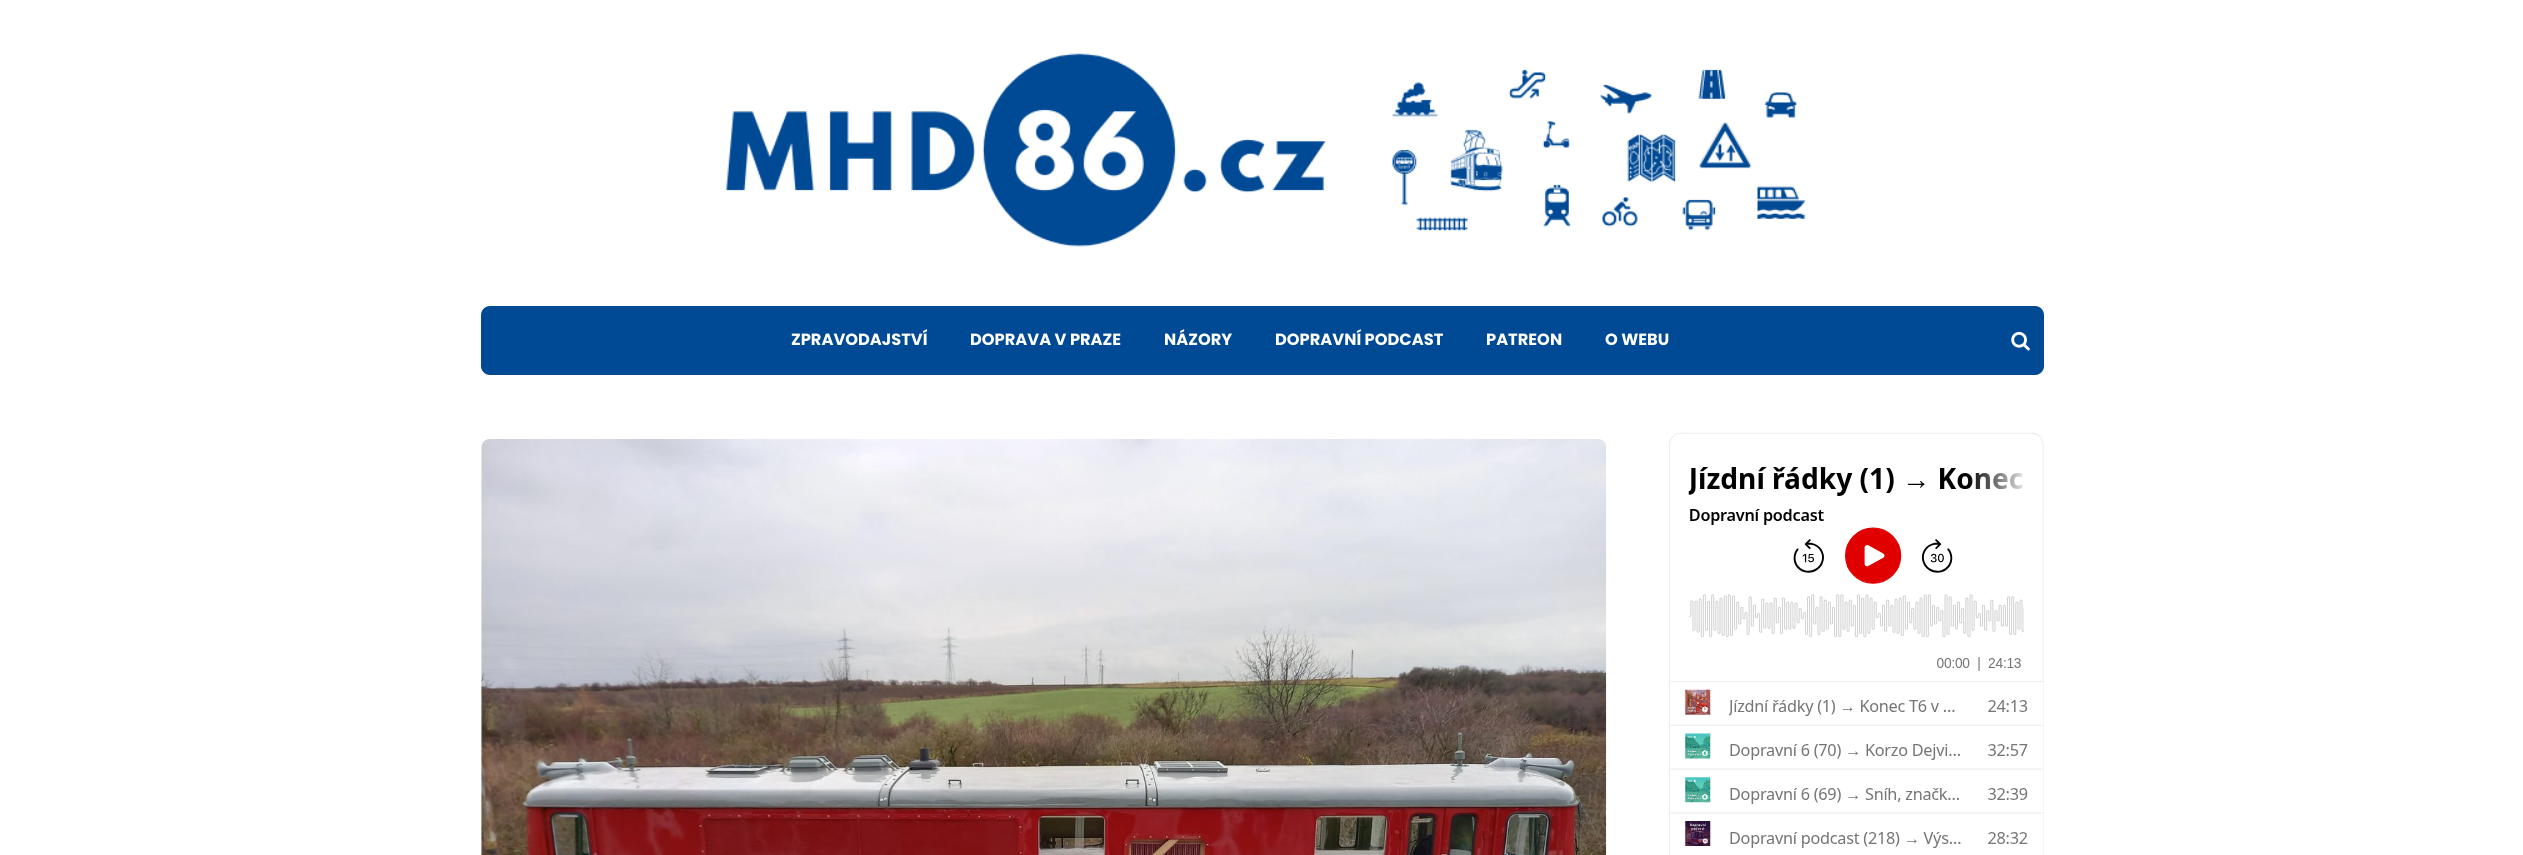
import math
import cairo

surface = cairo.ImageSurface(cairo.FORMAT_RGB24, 2523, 855)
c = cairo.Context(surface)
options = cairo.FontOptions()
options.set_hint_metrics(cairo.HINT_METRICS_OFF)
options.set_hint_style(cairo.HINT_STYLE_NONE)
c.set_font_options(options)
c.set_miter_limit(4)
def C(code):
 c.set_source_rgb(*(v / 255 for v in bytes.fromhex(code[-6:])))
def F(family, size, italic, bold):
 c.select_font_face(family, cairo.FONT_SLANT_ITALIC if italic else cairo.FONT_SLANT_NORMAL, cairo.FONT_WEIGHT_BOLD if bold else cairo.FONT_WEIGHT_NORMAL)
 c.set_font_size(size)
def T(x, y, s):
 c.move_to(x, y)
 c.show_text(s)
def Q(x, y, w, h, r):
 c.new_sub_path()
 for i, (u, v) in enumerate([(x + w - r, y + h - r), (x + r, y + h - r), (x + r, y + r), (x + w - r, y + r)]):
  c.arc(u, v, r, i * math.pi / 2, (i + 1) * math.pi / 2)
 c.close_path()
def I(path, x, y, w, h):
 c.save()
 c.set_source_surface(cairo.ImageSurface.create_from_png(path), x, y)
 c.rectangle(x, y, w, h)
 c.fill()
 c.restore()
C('ffffff')
c.paint()
I('1.png',726,53,1080,194)
C('004a95')
Q(481,306,1563,69,9)
c.fill()
F('Poppins',16.25,0,1)
C('ffffff')
T(791,345,'ZPRAVODAJSTVÍ')
T(970,345,'DOPRAVA V PRAZE')
T(1164,345,'NÁZORY')
T(1275,345,'DOPRAVNÍ PODCAST')
T(1486,345,'PATREON')
T(1605,345,'O WEBU')
I('2.png',2011,331,19,20)
I('3.png',481,439,1126,416)
I('4.png',1669,432,375,423)
surface.write_to_png('o.png')
